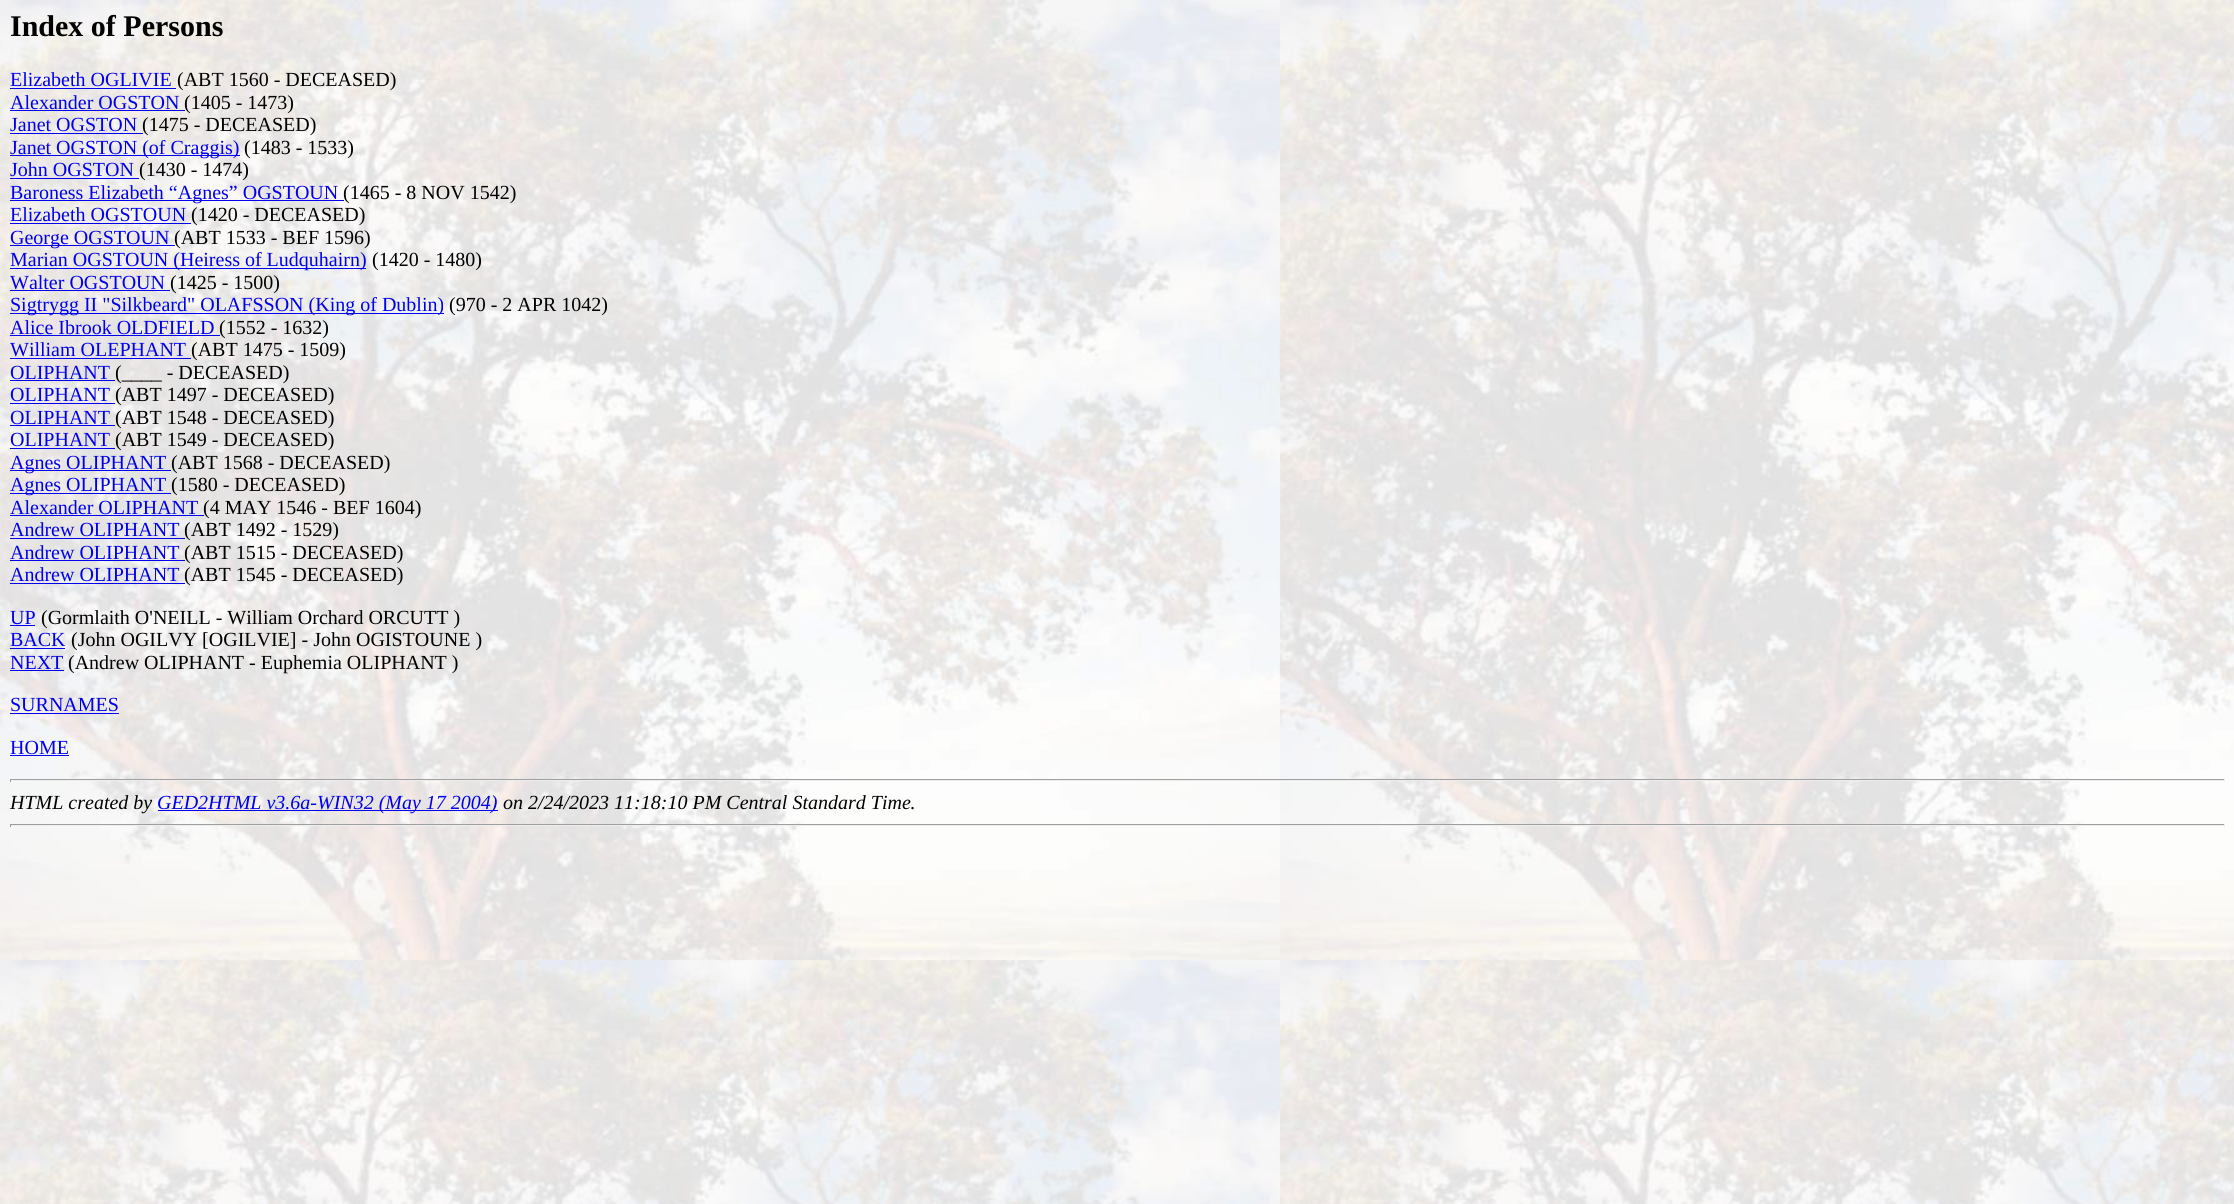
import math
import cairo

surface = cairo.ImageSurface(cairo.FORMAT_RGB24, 2234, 1204)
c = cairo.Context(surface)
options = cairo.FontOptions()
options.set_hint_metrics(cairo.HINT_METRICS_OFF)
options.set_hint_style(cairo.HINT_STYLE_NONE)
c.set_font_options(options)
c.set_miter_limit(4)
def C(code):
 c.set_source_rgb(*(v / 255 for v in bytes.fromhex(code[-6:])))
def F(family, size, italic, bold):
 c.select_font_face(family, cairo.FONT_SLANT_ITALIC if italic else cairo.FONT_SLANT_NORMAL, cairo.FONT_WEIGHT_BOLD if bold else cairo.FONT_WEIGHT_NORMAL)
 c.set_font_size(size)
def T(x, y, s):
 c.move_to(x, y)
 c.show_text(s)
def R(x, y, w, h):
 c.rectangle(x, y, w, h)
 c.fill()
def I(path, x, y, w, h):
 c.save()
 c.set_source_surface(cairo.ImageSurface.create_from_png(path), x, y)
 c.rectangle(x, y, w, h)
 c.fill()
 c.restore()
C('ffffff')
c.paint()
I('1.png',0,0,2234,1204)
F('Liberation Serif',30,0,1)
C('000000')
T(10,36,'Index of Persons')
F('Liberation Serif',20,0,0)
C('0000ee')
T(10,86,'Elizabeth OGLIVIE')
R(10,88,166,1)
C('000000')
T(177,86,'(ABT 1560 - DECEASED)')
C('0000ee')
T(10,109,'Alexander OGSTON')
R(10,110,175,1)
C('000000')
T(184,109,'(1405 - 1473)')
C('0000ee')
T(10,131,'Janet OGSTON')
R(10,133,133,1)
C('000000')
T(142,131,'(1475 - DECEASED)')
C('0000ee')
R(10,155,230,1)
T(10,154,'Janet OGSTON (of Craggis)')
C('000000')
T(244,154,'(1483 - 1533)')
C('0000ee')
T(10,176,'John OGSTON')
R(10,178,129,1)
C('000000')
T(139,176,'(1430 - 1474)')
C('0000ee')
R(10,200,334,1)
T(10,199,'Baroness Elizabeth “Agnes” OGSTOUN')
C('000000')
T(343,199,'(1465 - 8 NOV 1542)')
C('0000ee')
T(10,221,'Elizabeth OGSTOUN')
R(10,223,181,1)
C('000000')
T(191,221,'(1420 - DECEASED)')
C('0000ee')
R(10,245,165,1)
T(10,244,'George OGSTOUN')
C('000000')
T(174,244,'(ABT 1533 - BEF 1596)')
C('0000ee')
R(10,268,356,1)
T(10,266,'Marian OGSTOUN (Heiress of Ludquhairn)')
C('000000')
T(372,266,'(1420 - 1480)')
C('0000ee')
T(10,289,'Walter OGSTOUN')
R(10,290,160,1)
C('000000')
T(170,289,'(1425 - 1500)')
C('0000ee')
R(10,313,434,1)
T(10,311,'Sigtrygg II "Silkbeard" OLAFSSON (King of Dublin)')
C('000000')
T(449,311,'(970 - 2 APR 1042)')
C('0000ee')
T(10,334,'Alice Ibrook OLDFIELD')
R(10,335,210,1)
C('000000')
T(219,334,'(1552 - 1632)')
C('0000ee')
T(10,356,'William OLEPHANT')
R(10,358,181,1)
C('000000')
T(191,356,'(ABT 1475 - 1509)')
C('0000ee')
T(10,379,'OLIPHANT')
R(10,380,105,1)
C('000000')
T(115,379,'(____ - DECEASED)')
C('0000ee')
T(10,401,'OLIPHANT')
R(10,403,105,1)
C('000000')
T(115,401,'(ABT 1497 - DECEASED)')
C('0000ee')
T(10,424,'OLIPHANT')
R(10,425,105,1)
C('000000')
T(115,424,'(ABT 1548 - DECEASED)')
C('0000ee')
T(10,446,'OLIPHANT')
R(10,448,105,1)
C('000000')
T(115,446,'(ABT 1549 - DECEASED)')
C('0000ee')
R(10,470,161,1)
T(10,469,'Agnes OLIPHANT')
C('000000')
T(171,469,'(ABT 1568 - DECEASED)')
C('0000ee')
R(10,493,161,1)
T(10,491,'Agnes OLIPHANT')
C('000000')
T(171,491,'(1580 - DECEASED)')
C('0000ee')
T(10,514,'Alexander OLIPHANT')
R(10,515,194,1)
C('000000')
T(203,514,'(4 MAY 1546 - BEF 1604)')
C('0000ee')
T(10,536,'Andrew OLIPHANT')
R(10,538,175,1)
C('000000')
T(184,536,'(ABT 1492 - 1529)')
C('0000ee')
T(10,559,'Andrew OLIPHANT')
R(10,560,175,1)
C('000000')
T(184,559,'(ABT 1515 - DECEASED)')
C('0000ee')
T(10,581,'Andrew OLIPHANT')
R(10,583,175,1)
C('000000')
T(184,581,'(ABT 1545 - DECEASED)')
C('0000ee')
T(10,624,'UP')
R(10,625,25,1)
C('000000')
T(41,624,'(Gormlaith O\'NEILL - William Orchard ORCUTT )')
C('0000ee')
T(10,646,'BACK')
R(10,648,55,1)
C('000000')
T(71,646,'(John OGILVY [OGILVIE] - John OGISTOUNE )')
C('0000ee')
T(10,669,'NEXT')
R(10,670,54,1)
C('000000')
T(68,669,'(Andrew OLIPHANT - Euphemia OLIPHANT )')
C('0000ee')
T(10,711,'SURNAMES')
R(10,713,109,1)
T(10,754,'HOME')
R(10,755,59,1)
C('9f9f9f')
R(10,779,2215,1)
C('eeeeee')
R(2224,779,1,3)
R(10,780,2215,1)
C('9f9f9f')
R(10,779,1,3)
F('Liberation Serif',20,1,0)
C('000000')
T(10,809,'HTML created by')
C('0000ee')
R(158,810,340,1)
T(157,809,'GED2HTML v3.6a-WIN32 (May 17 2004)')
C('000000')
T(503,809,'on 2/24/2023 11:18:10 PM Central Standard Time')
F('Liberation Serif',20,0,0)
T(910,809,'.')
C('9f9f9f')
R(10,824,2215,1)
C('eeeeee')
R(2224,824,1,3)
R(10,825,2215,1)
C('9f9f9f')
R(10,824,1,3)
surface.write_to_png('o.png')
